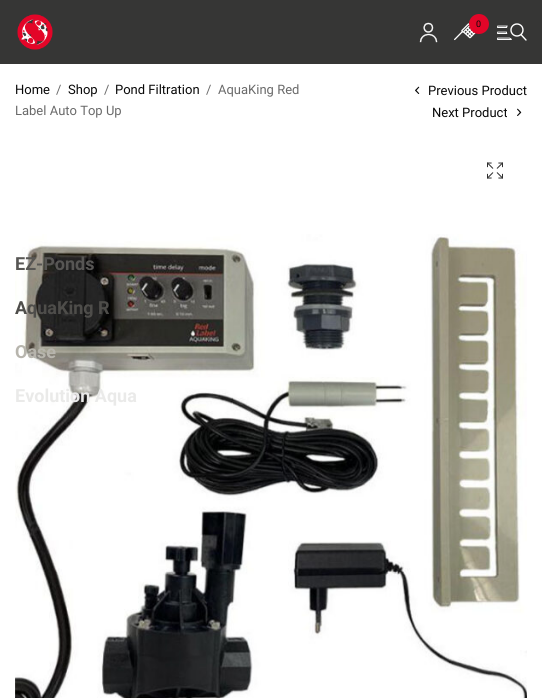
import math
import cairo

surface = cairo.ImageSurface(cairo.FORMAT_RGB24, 542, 698)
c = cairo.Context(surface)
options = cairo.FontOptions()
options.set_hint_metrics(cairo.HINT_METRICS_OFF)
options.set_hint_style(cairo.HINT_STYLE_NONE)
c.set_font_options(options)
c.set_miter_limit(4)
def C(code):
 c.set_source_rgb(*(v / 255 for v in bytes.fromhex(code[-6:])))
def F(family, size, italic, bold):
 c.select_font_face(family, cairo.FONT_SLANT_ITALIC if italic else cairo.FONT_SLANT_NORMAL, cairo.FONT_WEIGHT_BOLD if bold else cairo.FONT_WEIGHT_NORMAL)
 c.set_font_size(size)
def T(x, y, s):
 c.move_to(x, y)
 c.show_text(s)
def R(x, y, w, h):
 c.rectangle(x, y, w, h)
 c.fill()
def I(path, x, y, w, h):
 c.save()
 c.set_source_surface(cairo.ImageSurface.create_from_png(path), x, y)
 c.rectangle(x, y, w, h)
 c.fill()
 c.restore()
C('ffffff')
c.paint()
C('363635')
R(0,0,542,64)
I('1.png',17,14,36,36)
I('2.png',419,22,19,21)
I('3.png',454,23,22,18)
C('e30528')
c.arc(479,24,10,0,2 * math.pi)
c.fill()
F('Roboto',9,0,0)
C('090909')
T(476,27,'0')
I('4.png',497,23,30,18)
F('Roboto',13,0,0)
T(15,94,'Home')
C('6a6a6a')
T(56,94,'/')
C('090909')
T(68,94,'Shop')
C('6a6a6a')
T(104,94,'/')
C('090909')
T(115,94,'Pond Filtration')
C('6a6a6a')
T(206,94,'/')
T(218,94,'AquaKing Red')
T(15,115,'Label Auto Top Up')
I('5.png',415,86,5,8)
C('090909')
T(428,95,'Previous Product')
T(432,117,'Next Product')
I('6.png',517,108,5,8)
I('7.png',487,162,16,17)
I('8.png',15,234,512,464)
F('Roboto',18,0,1)
C('575654')
T(15,270,'EZ-Ponds')
C('4e4d4a')
T(15,314,'AquaKing R')
C('b7b5ad')
T(15,358,'Oase')
C('eaeae9')
T(15,402,'Evolution Aqua')
surface.write_to_png('o.png')
